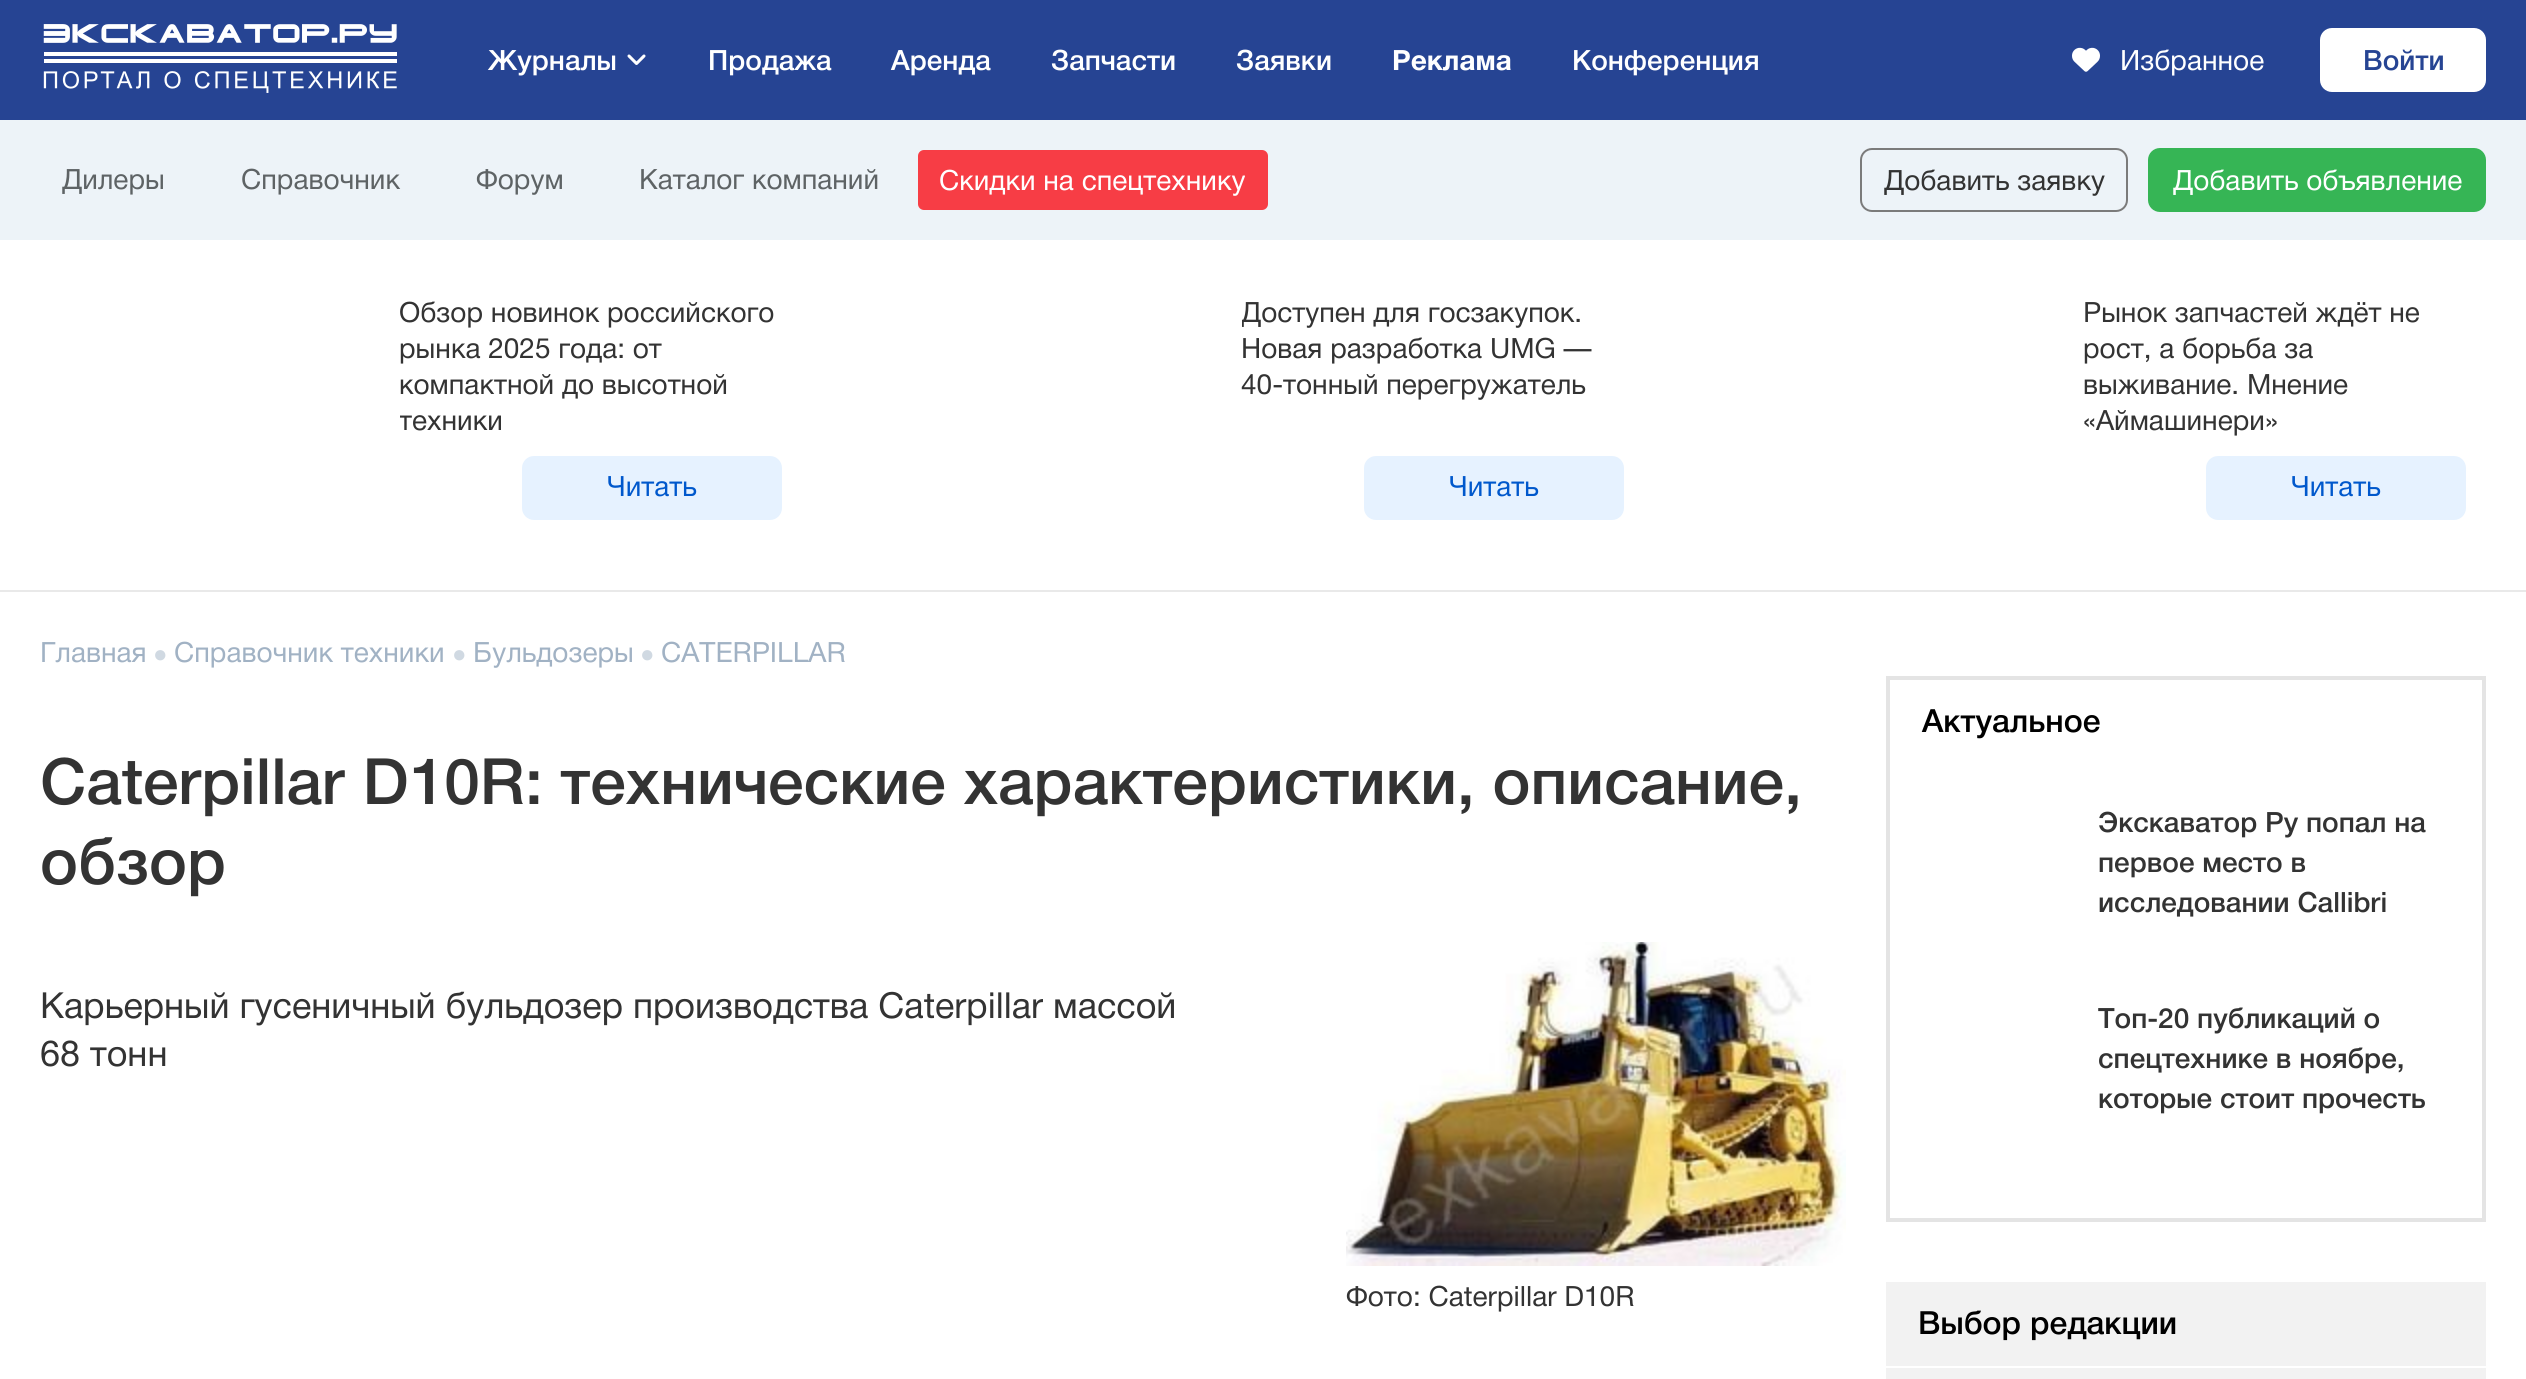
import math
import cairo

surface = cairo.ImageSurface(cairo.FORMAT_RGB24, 2526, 1379)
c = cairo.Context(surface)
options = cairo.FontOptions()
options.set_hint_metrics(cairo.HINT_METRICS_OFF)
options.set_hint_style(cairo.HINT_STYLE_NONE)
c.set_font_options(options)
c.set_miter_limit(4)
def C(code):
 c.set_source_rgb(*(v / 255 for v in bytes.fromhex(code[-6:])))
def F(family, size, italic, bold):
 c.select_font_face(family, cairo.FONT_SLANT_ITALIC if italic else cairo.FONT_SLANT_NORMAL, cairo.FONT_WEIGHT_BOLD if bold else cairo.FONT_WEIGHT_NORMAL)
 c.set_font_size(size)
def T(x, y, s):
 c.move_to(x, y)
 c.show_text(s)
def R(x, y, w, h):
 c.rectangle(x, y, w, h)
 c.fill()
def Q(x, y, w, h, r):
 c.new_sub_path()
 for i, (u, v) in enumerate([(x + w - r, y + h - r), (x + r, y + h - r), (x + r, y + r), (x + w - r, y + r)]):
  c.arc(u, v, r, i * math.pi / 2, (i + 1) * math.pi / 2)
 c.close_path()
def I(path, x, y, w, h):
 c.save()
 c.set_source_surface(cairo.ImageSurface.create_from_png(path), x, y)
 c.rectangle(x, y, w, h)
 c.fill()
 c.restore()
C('ffffff')
c.paint()
C('264493')
R(0,0,2526,120)
I('1.png',43,24,354,69)
F('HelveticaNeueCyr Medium',28,0,0)
C('ffffff')
T(488,70,'Журналы')
I('2.png',627,54,19,11)
T(708,70,'Продажа')
T(891,70,'Аренда')
T(1051,70,'Запчасти')
T(1236,70,'Заявки')
F('HelveticaNeueCyr',28,0,1)
T(1392,70,'Реклама')
F('HelveticaNeueCyr Medium',28,0,0)
T(1572,70,'Конференция')
I('3.png',2072,47,28,25)
F('HelveticaNeueCyr',28,0,0)
T(2120,70,'Избранное')
Q(2321,29,164,62,11)
c.fill_preserve()
c.stroke()
F('HelveticaNeueCyr Medium',28,0,0)
C('264493')
T(2363,70,'Войти')
C('edf3f8')
R(0,120,2526,120)
F('HelveticaNeueCyr',28,0,0)
C('5e6365')
T(62,189,'Дилеры')
T(241,189,'Справочник')
T(476,189,'Форум')
T(639,189,'Каталог компаний')
C('f73d45')
Q(918,150,350,60,6)
c.fill()
C('ffffff')
T(939,190,'Скидки на спецтехнику')
Q(1861,149,266,62,11)
C('7b7b7b')
c.stroke()
C('333333')
T(1884,190,'Добавить заявку')
C('36b555')
Q(2149,149,336,62,11)
c.fill_preserve()
c.stroke()
C('ffffff')
T(2173,190,'Добавить объявление')
C('333333')
T(399,322,'Обзор новинок российского')
T(399,358,'рынка 2025 года: от')
T(399,394,'компактной до высотной')
c.save()
c.rectangle(400,294,382,150)
c.clip()
T(399,430,'техники')
c.restore()
C('e6f2ff')
Q(522,456,260,64,12)
c.fill()
C('0058cc')
T(607,496,'Читать')
c.save()
c.rectangle(1242,294,382,150)
c.clip()
C('333333')
T(1241,322,'Доступен для госзакупок.')
c.restore()
C('333333')
T(1241,358,'Новая разработка UMG —')
T(1241,394,'40-тонный перегружатель')
C('e6f2ff')
Q(1364,456,260,64,12)
c.fill()
C('0058cc')
T(1449,496,'Читать')
C('333333')
T(2083,322,'Рынок запчастей ждёт не')
T(2083,358,'рост, а борьба за')
T(2083,394,'выживание. Мнение')
T(2083,430,'«Аймашинери»')
C('e6f2ff')
Q(2206,456,260,64,12)
c.fill()
C('0058cc')
T(2291,496,'Читать')
C('e9e9e9')
R(0,590,2526,2)
C('a1b2c4')
T(40,662,'Главная')
F('Liberation Sans',24,0,0)
C('d0d9e2')
T(153,662,'●')
F('HelveticaNeueCyr',28,0,0)
C('a1b2c4')
T(174,662,'Справочник техники')
F('Liberation Sans',24,0,0)
C('d0d9e2')
T(452,662,'●')
F('HelveticaNeueCyr',28,0,0)
C('a1b2c4')
T(473,662,'Бульдозеры')
F('Liberation Sans',24,0,0)
C('d0d9e2')
T(640,662,'●')
F('HelveticaNeueCyr',28,0,0)
C('a1b2c4')
T(661,662,'CATERPILLAR')
F('HelveticaNeueCyr Medium',64,0,0)
C('333333')
T(40,804,'Caterpillar D10R: технические характеристики, описание,')
T(40,884,'обзор')
F('HelveticaNeueCyr',36,0,0)
T(40,1018,'Карьерный гусеничный бульдозер производства Caterpillar массой')
T(40,1066,'68 тонн')
I('4.png',1346,942,500,324)
F('HelveticaNeueCyr',28,0,0)
T(1346,1306,'Фото: Caterpillar D10R')
c.rectangle(1888,678,596,542)
C('e4e4e4')
c.set_line_width(4)
c.stroke()
F('HelveticaNeueCyr Medium',32,0,0)
C('000000')
T(1922,732,'Актуальное')
F('HelveticaNeueCyr Medium',28,0,0)
C('333333')
T(2098,832,'Экскаватор Ру попал на')
T(2098,872,'первое место в')
T(2098,912,'исследовании Callibri')
T(2098,1028,'Топ-20 публикаций о')
T(2098,1068,'спецтехнике в ноябре,')
T(2098,1108,'которые стоит прочесть')
C('f2f2f2')
R(1886,1282,600,97)
C('ffffff')
R(1886,1366,600,2)
F('HelveticaNeueCyr Medium',32,0,0)
C('000000')
T(1918,1334,'Выбор редакции')
surface.write_to_png('o.png')
